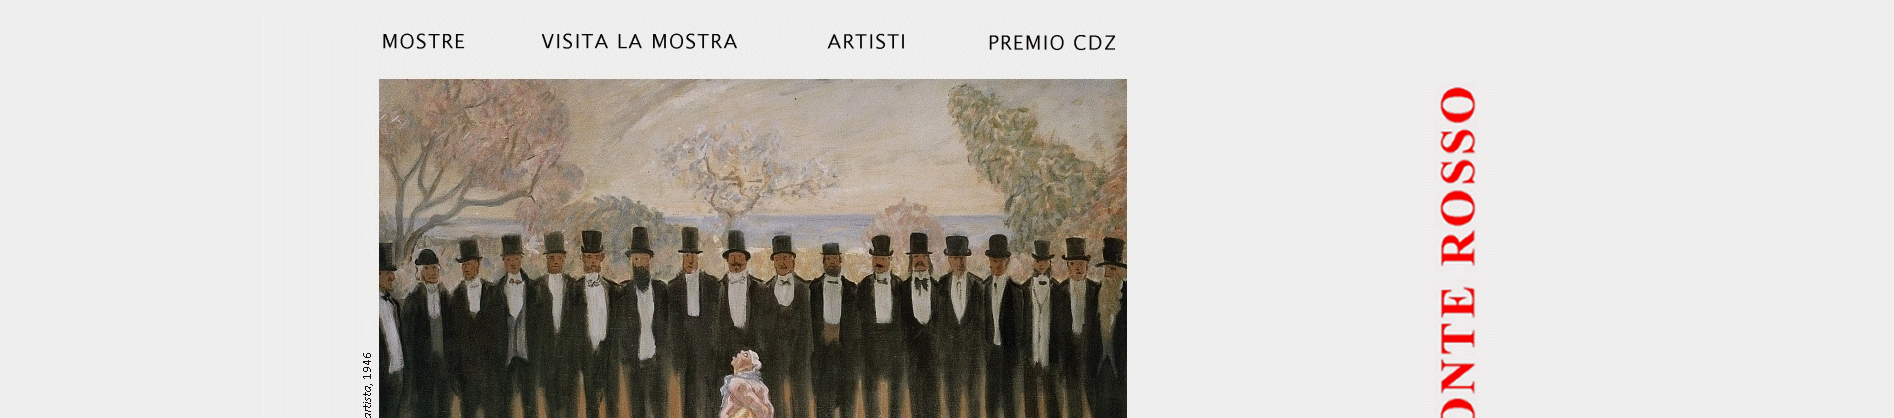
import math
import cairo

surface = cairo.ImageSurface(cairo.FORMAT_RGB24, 1894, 418)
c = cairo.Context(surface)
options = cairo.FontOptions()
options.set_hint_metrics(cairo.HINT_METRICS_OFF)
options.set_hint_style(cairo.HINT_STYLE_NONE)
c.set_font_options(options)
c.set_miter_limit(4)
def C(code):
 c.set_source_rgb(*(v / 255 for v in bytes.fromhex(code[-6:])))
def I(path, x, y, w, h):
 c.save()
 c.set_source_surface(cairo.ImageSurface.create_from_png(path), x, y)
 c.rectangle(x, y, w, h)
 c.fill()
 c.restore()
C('eeeeee')
c.paint()
I('1.png',258,14,874,404)
I('2.png',1420,83,78,335)
surface.write_to_png('o.png')
